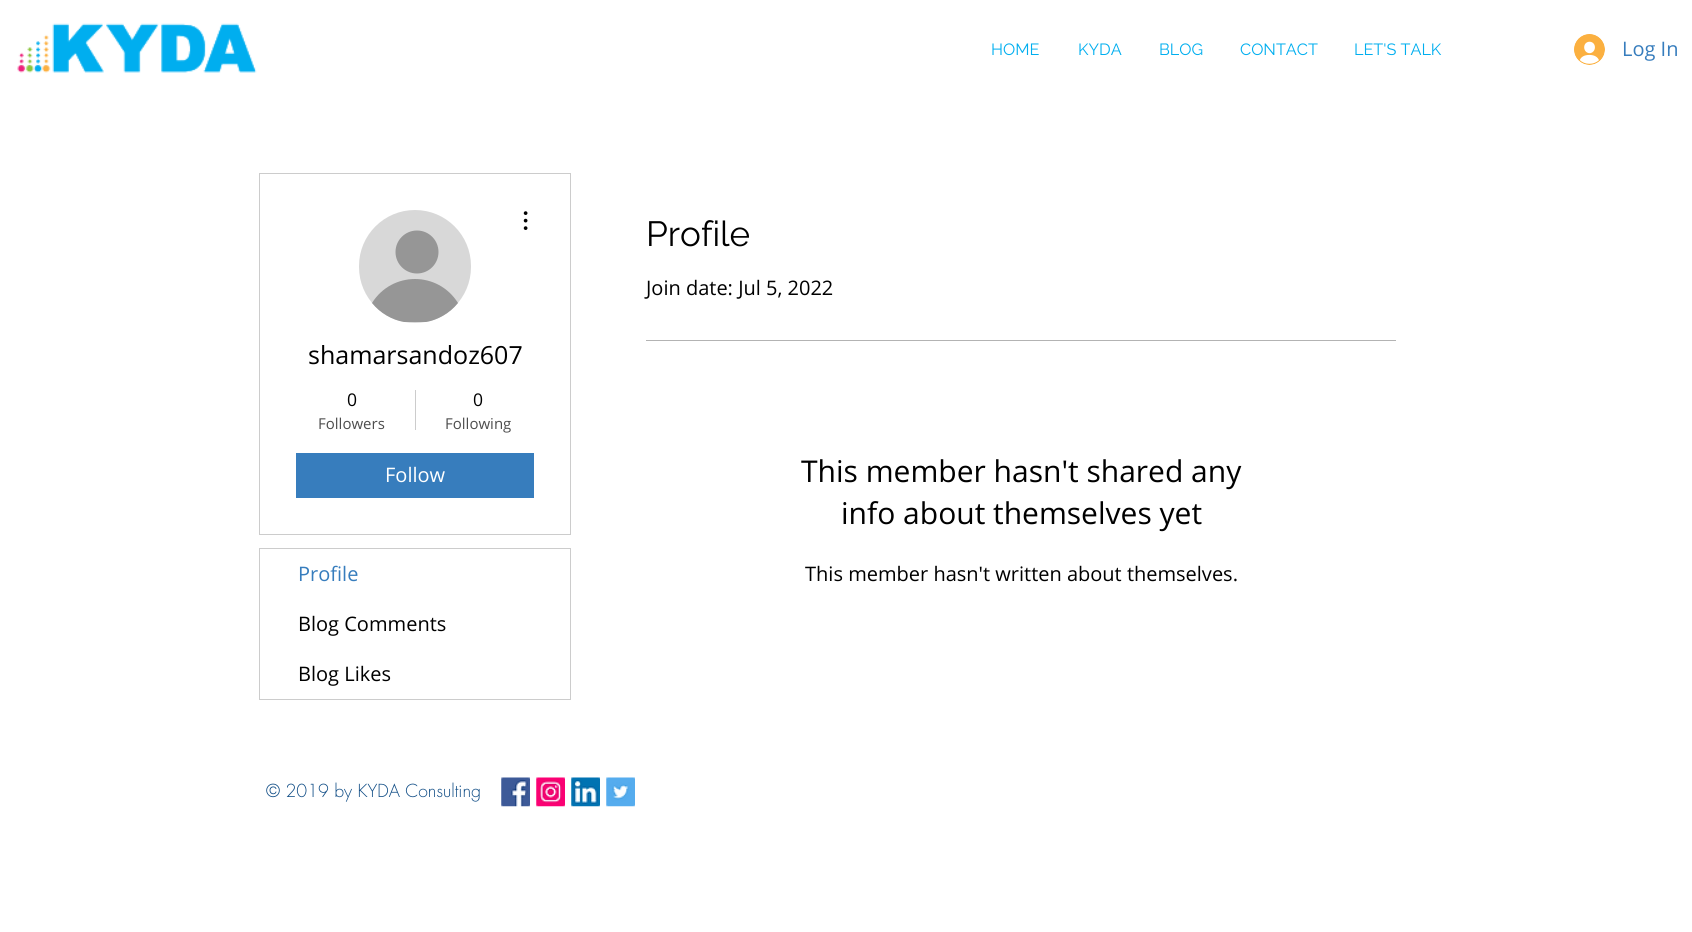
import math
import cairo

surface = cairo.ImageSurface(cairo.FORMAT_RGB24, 1692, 932)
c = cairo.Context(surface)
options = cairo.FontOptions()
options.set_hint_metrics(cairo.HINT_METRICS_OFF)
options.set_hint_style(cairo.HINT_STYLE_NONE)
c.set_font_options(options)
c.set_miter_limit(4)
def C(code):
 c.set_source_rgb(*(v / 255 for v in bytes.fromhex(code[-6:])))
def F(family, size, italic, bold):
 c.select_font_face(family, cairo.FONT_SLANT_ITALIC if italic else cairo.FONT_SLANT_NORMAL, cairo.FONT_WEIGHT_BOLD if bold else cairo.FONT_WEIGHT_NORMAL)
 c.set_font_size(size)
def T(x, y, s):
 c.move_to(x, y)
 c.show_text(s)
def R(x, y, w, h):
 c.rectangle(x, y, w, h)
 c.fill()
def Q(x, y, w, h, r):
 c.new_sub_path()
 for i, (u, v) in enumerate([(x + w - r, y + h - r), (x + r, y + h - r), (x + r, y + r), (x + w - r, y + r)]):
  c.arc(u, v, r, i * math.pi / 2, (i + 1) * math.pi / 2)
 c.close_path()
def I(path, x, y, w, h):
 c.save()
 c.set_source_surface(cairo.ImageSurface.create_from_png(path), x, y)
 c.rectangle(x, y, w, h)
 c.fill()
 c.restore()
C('ffffff')
c.paint()
I('1.png',17,23,240,50)
F('Raleway',16.25,0,0)
C('00aeef')
T(991,55,'HOME')
T(1078,55,'KYDA')
T(1159,55,'BLOG')
T(1240,55,'CONTACT')
T(1354,55,'LET\'S TALK')
I('2.png',1574,34,31,31)
F('Open Sans',20,0,0)
C('377dbd')
T(1622,56,'Log In')
c.rectangle(259.5,173.5,311,361)
C('cccccc')
c.set_line_width(1)
c.stroke()
C('d8d8d8')
Q(359,210,112,113,56)
c.fill()
C('969696')
c.arc(417,252,21.5,0,2 * math.pi)
c.fill()
c.new_path()
c.move_to(404,322)
c.curve_to(392,320,380,313,372,303)
c.curve_to(392,271,438,271,458,303)
c.curve_to(450,313,438,320,426,322)
c.close_path()
c.fill()
I('3.png',523,211,5,19)
F('Open Sans',25,0,0)
C('000000')
T(308,364,'shamarsandoz607')
F('Open Sans',17.5,0,0)
T(347,406,'0')
F('Open Sans',15,0,0)
C('4d4d4d')
T(318,429,'Followers')
C('cccccc')
R(415,390,1,40)
F('Open Sans',17.5,0,0)
C('000000')
T(473,406,'0')
F('Open Sans',15,0,0)
C('4d4d4d')
T(445,429,'Following')
C('377dbd')
R(296,453,238,45)
F('Open Sans',20,0,0)
C('ffffff')
T(385,482,'Follow')
c.rectangle(259.5,548.5,311,151)
C('cccccc')
c.stroke()
C('377dbd')
T(298,581,'Profile')
C('000000')
T(298,631,'Blog Comments')
T(298,681,'Blog Likes')
F('Raleway',35,0,0)
T(646,246,'Profile')
F('Open Sans',20,0,0)
T(646,295,'Join date: Jul 5, 2022')
C('b3b3b3')
R(646,340,750,1)
F('Open Sans',30,0,0)
C('000000')
T(801,482,'This member hasn\'t shared any')
T(841,524,'info about themselves yet')
F('Open Sans',20,0,0)
T(805,581,'This member hasn\'t written about themselves.')
F('futura Light',17.5,0,0)
C('0f4c85')
T(266,797,'© 2019 by KYDA Consulting')
I('4.png',501,777,29,30)
I('5.png',536,777,29,30)
I('6.png',571,777,29,30)
I('7.png',606,777,29,30)
surface.write_to_png('o.png')
